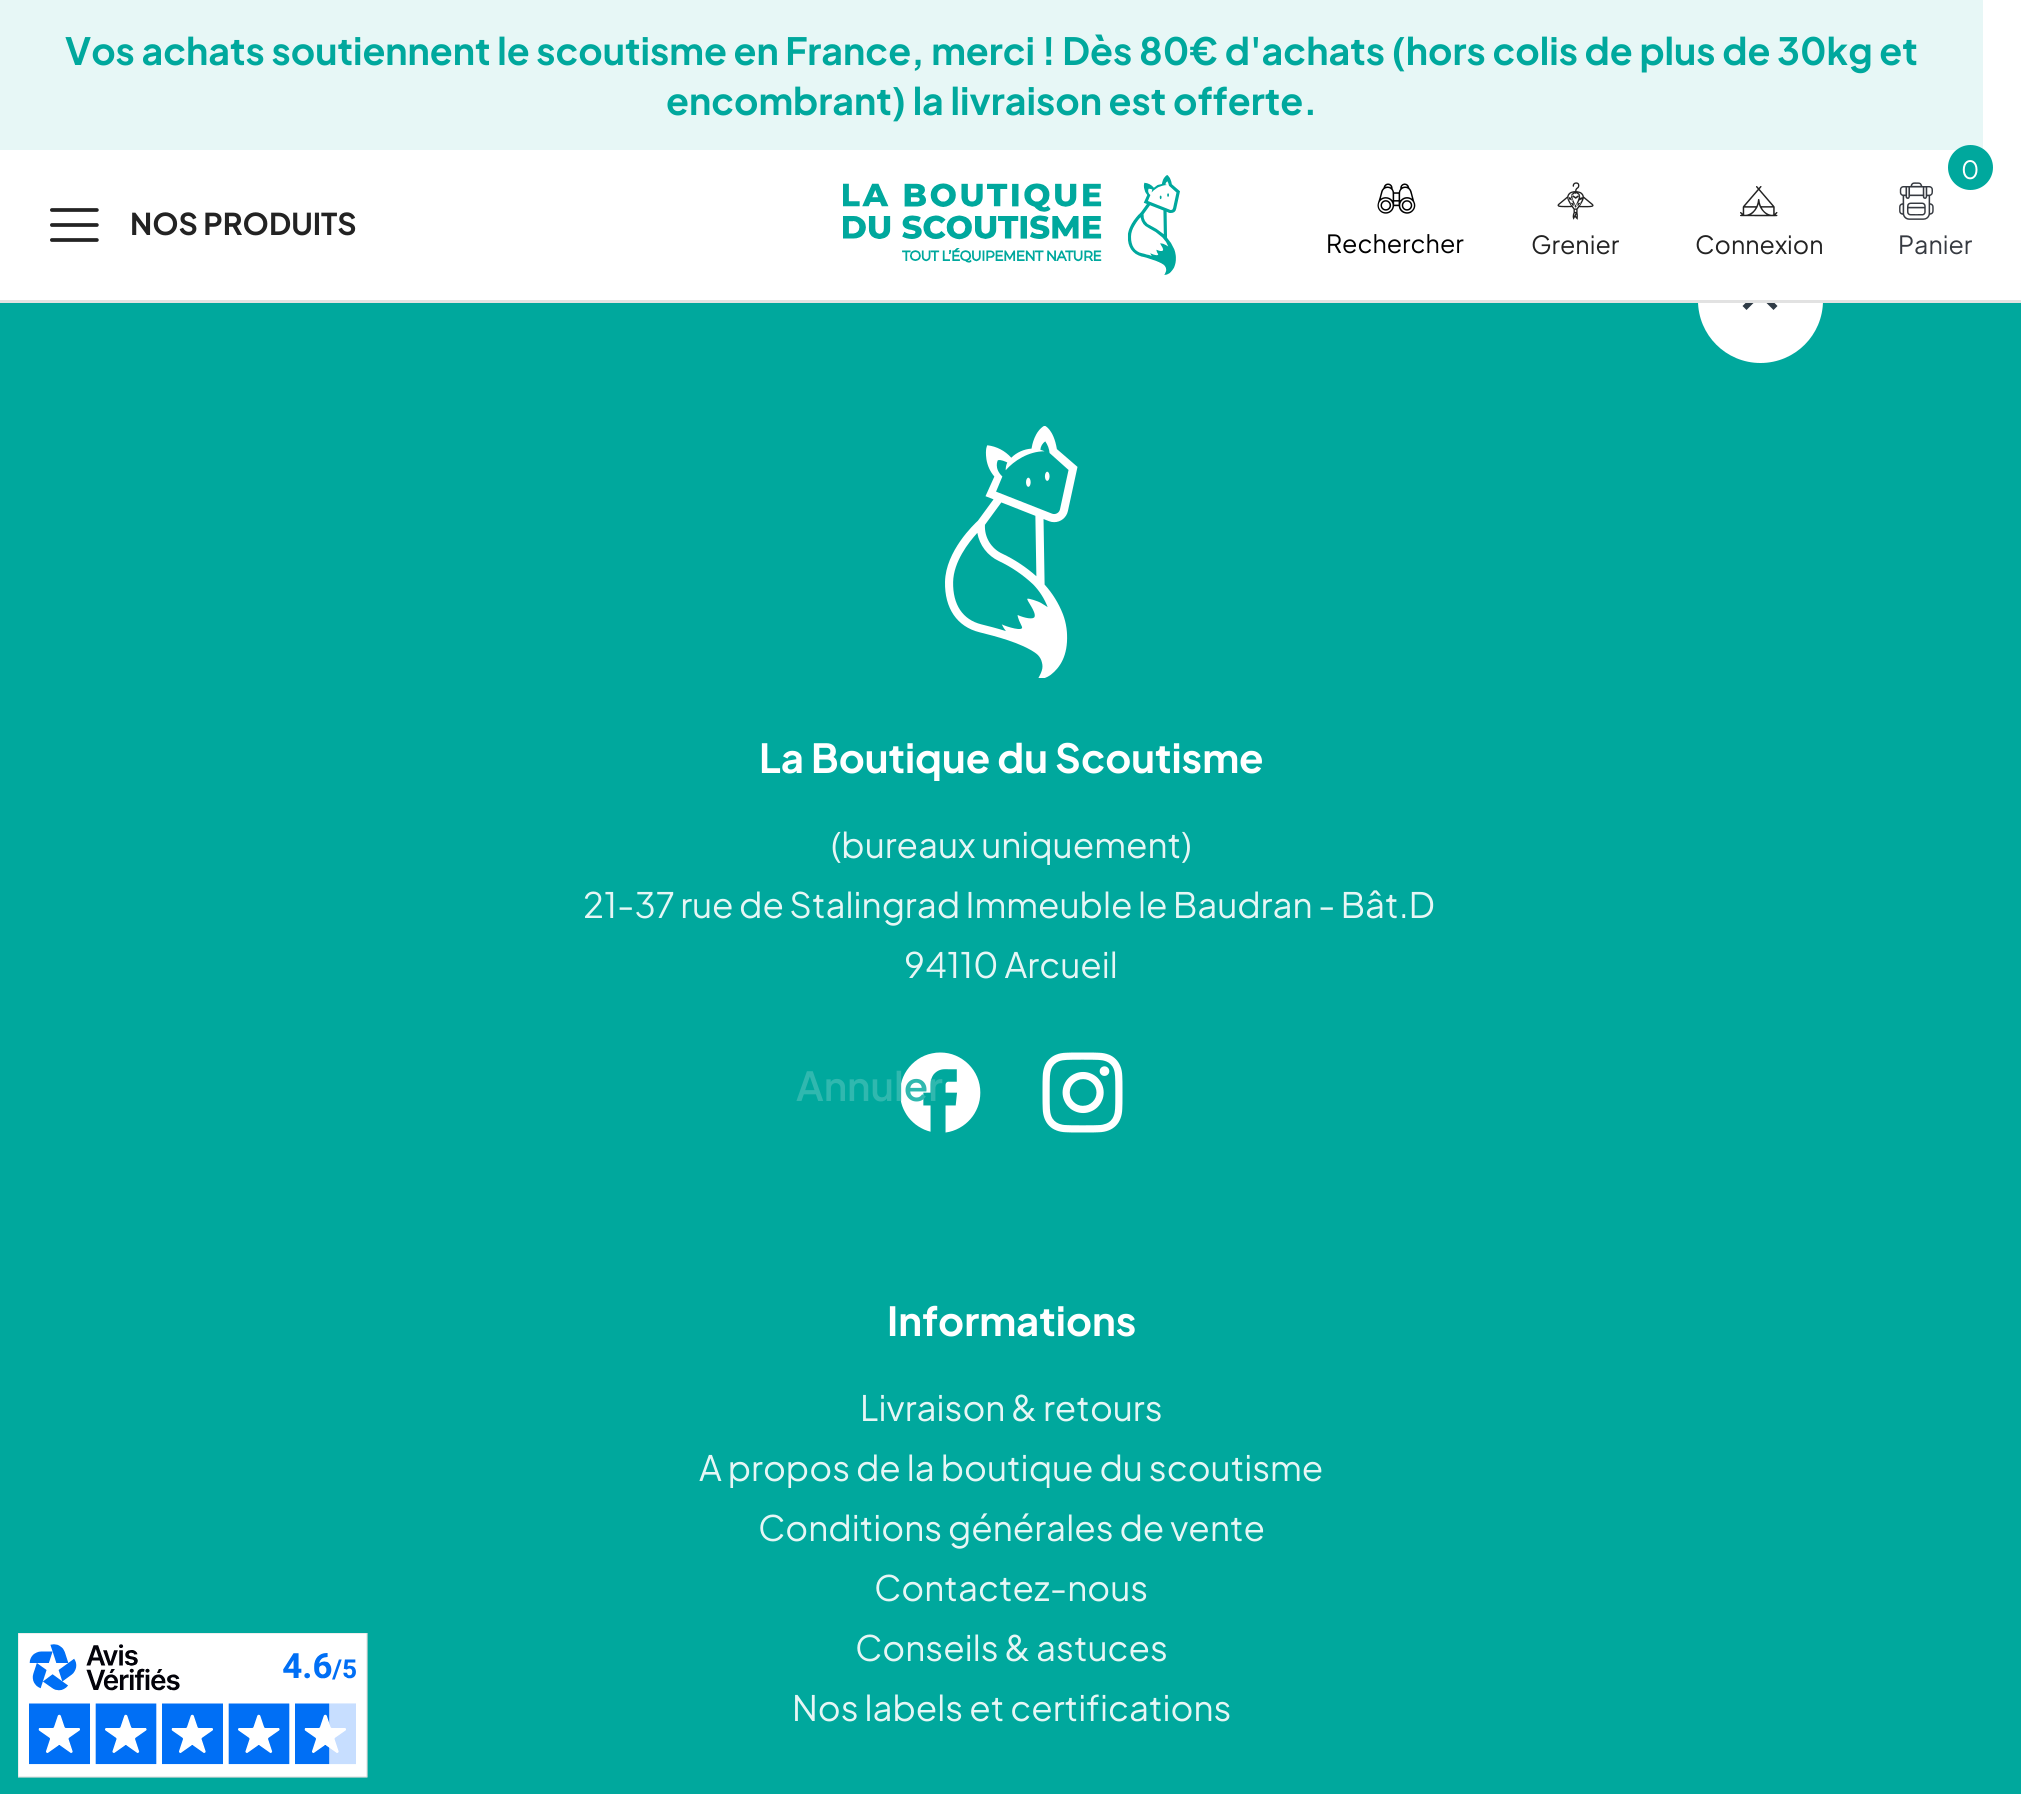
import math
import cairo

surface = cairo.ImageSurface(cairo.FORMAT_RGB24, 2021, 1794)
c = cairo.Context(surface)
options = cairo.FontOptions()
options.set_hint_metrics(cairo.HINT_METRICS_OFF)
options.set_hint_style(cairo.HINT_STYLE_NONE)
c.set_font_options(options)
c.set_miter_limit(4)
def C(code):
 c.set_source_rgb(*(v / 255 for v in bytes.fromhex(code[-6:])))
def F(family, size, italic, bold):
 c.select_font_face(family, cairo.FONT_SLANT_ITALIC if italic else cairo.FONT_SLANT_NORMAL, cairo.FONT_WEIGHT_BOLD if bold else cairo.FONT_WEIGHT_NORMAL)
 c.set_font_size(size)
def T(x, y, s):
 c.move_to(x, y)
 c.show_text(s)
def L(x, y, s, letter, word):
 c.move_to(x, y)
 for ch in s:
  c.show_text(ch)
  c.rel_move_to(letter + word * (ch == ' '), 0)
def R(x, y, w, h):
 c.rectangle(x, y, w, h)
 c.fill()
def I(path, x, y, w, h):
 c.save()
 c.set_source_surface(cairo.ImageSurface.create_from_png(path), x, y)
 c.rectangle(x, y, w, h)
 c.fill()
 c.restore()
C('00a89d')
c.paint()
C('ffffff')
c.arc(1760.5,300.5,62.5,0,2 * math.pi)
c.fill()
C('2f3b46')
c.new_path()
c.move_to(1760,288.5)
c.line_to(1777.5,306)
c.line_to(1773.5,310)
c.line_to(1760,296.5)
c.line_to(1746.5,310)
c.line_to(1742.5,306)
c.close_path()
c.fill()
C('ffffff')
R(0,0,2021,300)
C('e2e2e2')
R(0,300,2021,3)
C('e7f7f6')
R(0,0,1983,150)
F('Plus Jakarta Sans',37.5,0,1)
C('00a89d')
T(65,65,'Vos achats soutiennent le scoutisme en France, merci ! Dès 80€ d\'achats (hors colis de plus de 30kg et')
T(666,115,'encombrant) la livraison est offerte.')
I('1.png',50,208,49,34)
F('Plus Jakarta Sans',30,0,1)
C('232323')
T(130,235,'NOS PRODUITS')
I('2.png',843,175,337,100)
I('3.png',1377,183,39,31)
F('Plus Jakarta Sans',25,0,0)
C('000000')
T(1326,253,'Rechercher')
I('4.png',1557,182,37,38)
C('232323')
T(1531,254,'Grenier')
I('5.png',1740,186,38,31)
T(1695,254,'Connexion')
C('00a89d')
c.new_path()
c.arc(1970.5,167.5,22.5,0,2 * math.pi)
c.fill()
C('ffffff')
T(1961,179,'0')
I('6.png',1899,182,35,38)
C('363a41')
T(1898,254,'Panier')
I('7.png',945,426,133,252)
F('Plus Jakarta Sans',40,0,1)
C('ffffff')
T(759,773,'La Boutique du Scoutisme')
F('Plus Jakarta Sans',35,0,0)
C('e6f6f5')
T(831,858,'(bureaux uniquement)')
L(583,918,'21-37 rue de Stalingrad Immeuble le Baudran - Bât.D',0,-.5)
T(904,978,'94110 Arcueil')
I('8.png',900,1052,81,81)
I('9.png',1042,1052,81,81)
F('Plus Jakarta Sans SemiBold',40,0,0)
C('30b8af')
T(796,1101,'Annuler')
F('Plus Jakarta Sans',40,0,1)
C('ffffff')
T(887,1336,'Informations')
F('Plus Jakarta Sans',35,0,0)
C('e6f6f5')
T(860,1421,'Livraison & retours')
T(699,1481,'A propos de la boutique du scoutisme')
T(758,1541,'Conditions générales de vente')
T(874,1601,'Contactez-nous')
T(855,1661,'Conseils & astuces')
T(792,1721,'Nos labels et certifications')
I('10.png',18,1633,350,145)
surface.write_to_png('o.png')
